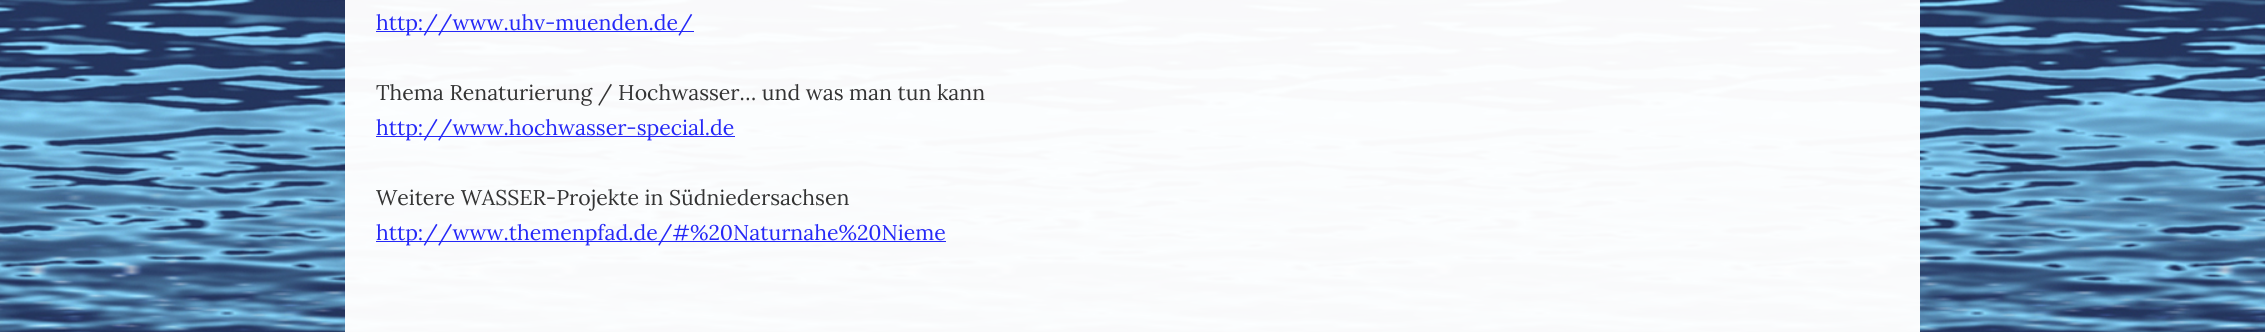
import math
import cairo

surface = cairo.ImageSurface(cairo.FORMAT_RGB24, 2265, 332)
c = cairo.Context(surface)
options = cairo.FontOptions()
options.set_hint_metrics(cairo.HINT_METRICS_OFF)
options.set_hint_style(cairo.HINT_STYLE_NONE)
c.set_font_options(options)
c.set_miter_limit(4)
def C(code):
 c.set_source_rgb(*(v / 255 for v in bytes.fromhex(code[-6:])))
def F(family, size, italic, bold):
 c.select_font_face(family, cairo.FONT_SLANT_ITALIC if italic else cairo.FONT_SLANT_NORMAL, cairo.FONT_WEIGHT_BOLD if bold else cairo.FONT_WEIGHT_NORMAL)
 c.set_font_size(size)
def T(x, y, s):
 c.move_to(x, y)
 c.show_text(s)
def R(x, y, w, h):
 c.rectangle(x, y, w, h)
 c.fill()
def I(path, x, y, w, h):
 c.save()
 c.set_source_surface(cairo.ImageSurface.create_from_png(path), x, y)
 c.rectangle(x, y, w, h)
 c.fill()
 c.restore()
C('ffffff')
c.paint()
I('1.png',0,0,2265,332)
c.set_source_rgba(1,1,1,0.97)
R(345,0,1575,332)
C('2528f7')
R(376,31,318,1)
F('Lora',21.25,0,0)
T(376,30,'http://www.uhv-muenden.de/')
C('333333')
T(376,100,'Thema Renaturierung / Hochwasser… und was man tun kann')
C('2528f7')
R(376,136,359,1)
T(376,135,'http://www.hochwasser-special.de')
C('333333')
T(376,205,'Weitere WASSER-Projekte in Südniedersachsen')
C('2528f7')
R(376,241,570,1)
T(376,240,'http://www.themenpfad.de/#%20Naturnahe%20Nieme')
surface.write_to_png('o.png')
